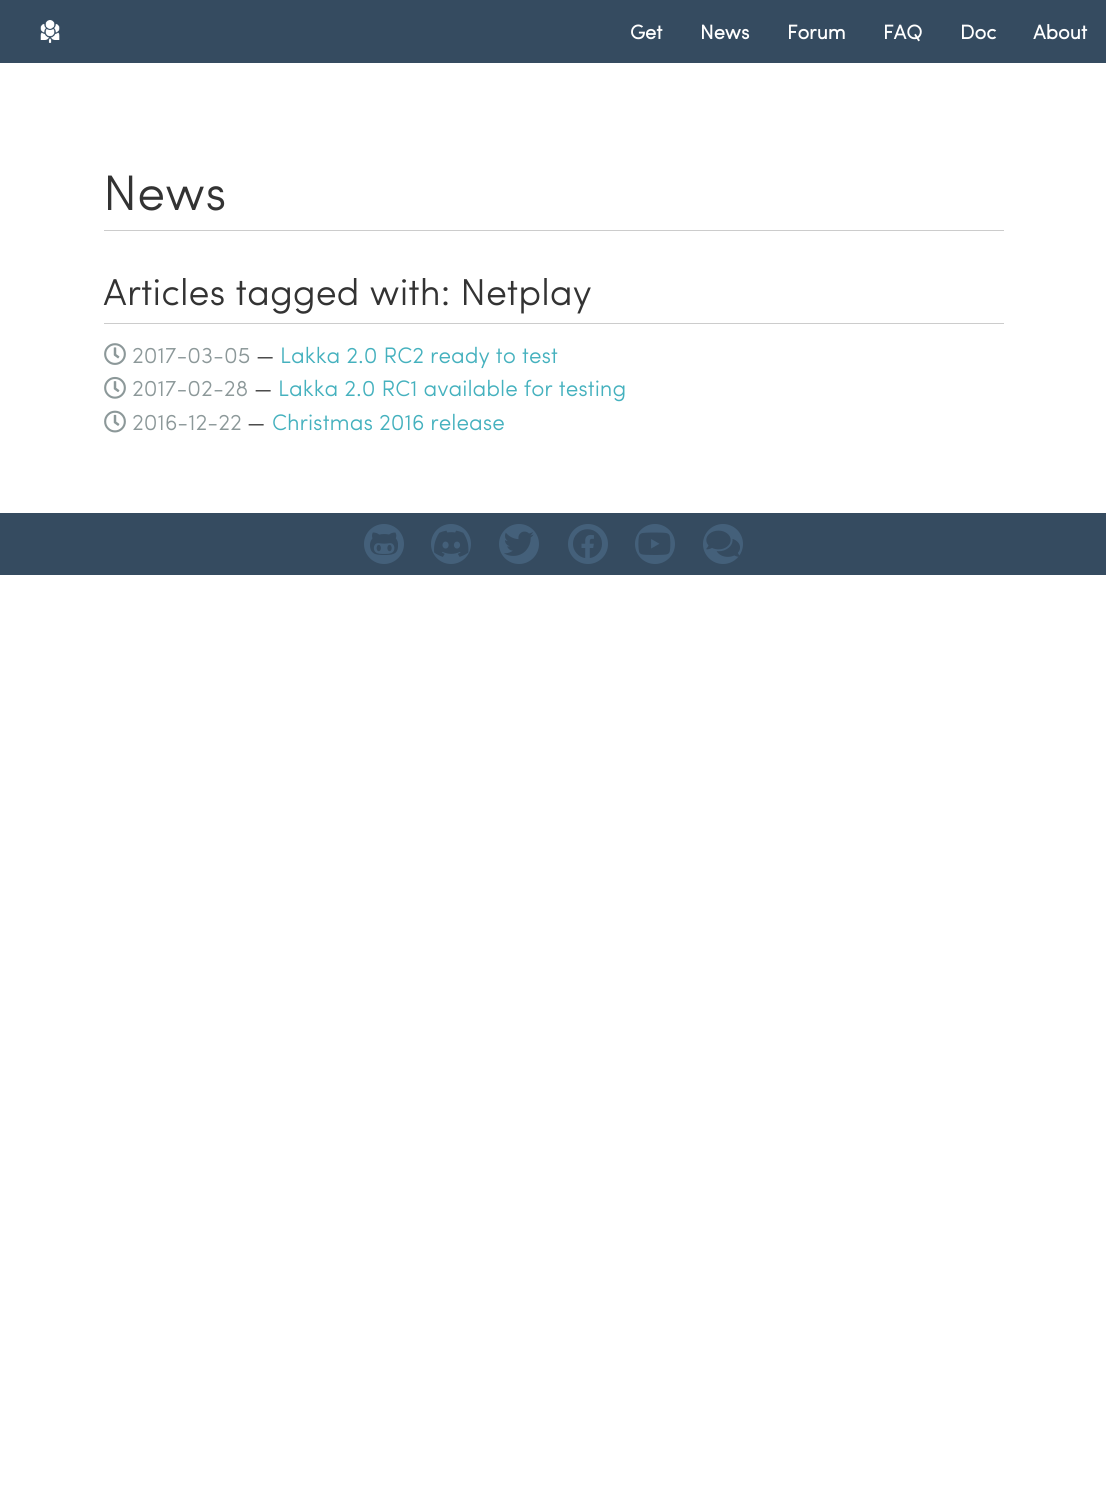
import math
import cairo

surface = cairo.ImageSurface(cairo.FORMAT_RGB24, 1106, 1497)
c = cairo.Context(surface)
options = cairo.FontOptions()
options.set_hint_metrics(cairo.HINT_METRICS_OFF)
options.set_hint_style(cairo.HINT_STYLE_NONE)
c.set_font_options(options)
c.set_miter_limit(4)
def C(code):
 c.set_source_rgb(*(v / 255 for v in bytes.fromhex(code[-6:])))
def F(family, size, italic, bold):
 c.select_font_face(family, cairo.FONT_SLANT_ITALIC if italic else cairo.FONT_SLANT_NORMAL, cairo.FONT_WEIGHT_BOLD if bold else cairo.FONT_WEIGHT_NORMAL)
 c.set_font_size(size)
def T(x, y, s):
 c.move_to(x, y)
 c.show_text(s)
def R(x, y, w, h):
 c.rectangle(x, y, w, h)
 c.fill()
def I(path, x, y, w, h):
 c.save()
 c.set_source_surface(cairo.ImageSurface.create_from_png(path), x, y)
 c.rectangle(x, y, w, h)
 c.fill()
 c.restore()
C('ffffff')
c.paint()
C('354b60')
R(0,0,1106,63)
I('1.png',40,20,20,23)
F('Sofia',20,0,1)
C('ffffff')
T(630,39,'Get')
T(700,39,'News')
T(787,39,'Forum')
T(883,39,'FAQ')
T(960,39,'Doc')
T(1033,39,'About')
C('cccccc')
R(104,230,900,1)
F('Sofia',50,0,0)
C('333333')
T(103,210,'News')
C('cccccc')
R(104,323,900,1)
F('Sofia',37.5,0,0)
C('333333')
T(103,305,'Articles tagged with: Netplay')
I('2.png',104,343,22,22)
F('Sofia',22.5,0,0)
C('8c9899')
T(132,363,'2017-03-05')
C('333333')
T(256,363,'—')
C('45b1be')
T(280,363,'Lakka 2.0 RC2 ready to test')
I('3.png',104,376,22,23)
C('8c9899')
T(132,396,'2017-02-28')
C('333333')
T(254,396,'—')
C('45b1be')
T(278,396,'Lakka 2.0 RC1 available for testing')
I('4.png',104,410,22,23)
C('8c9899')
T(132,430,'2016-12-22')
C('333333')
T(247,430,'—')
C('45b1be')
T(272,430,'Christmas 2016 release')
C('354b60')
R(0,513,1106,62)
C('44607a')
c.new_path()
c.arc(384,544,20,0,2 * math.pi)
c.fill()
I('5.png',370,532,28,23)
c.arc(451,544,20,0,2 * math.pi)
c.fill()
I('6.png',434,530,35,27)
c.arc(519,544,20,0,2 * math.pi)
c.fill()
I('7.png',504,531,30,25)
c.arc(588,544,20,0,2 * math.pi)
c.fill()
I('8.png',573,529,29,29)
c.arc(655,544,20,0,2 * math.pi)
c.fill()
I('9.png',638,532,33,23)
c.arc(723,544,20,0,2 * math.pi)
c.fill()
I('10.png',706,530,34,27)
surface.write_to_png('o.png')
